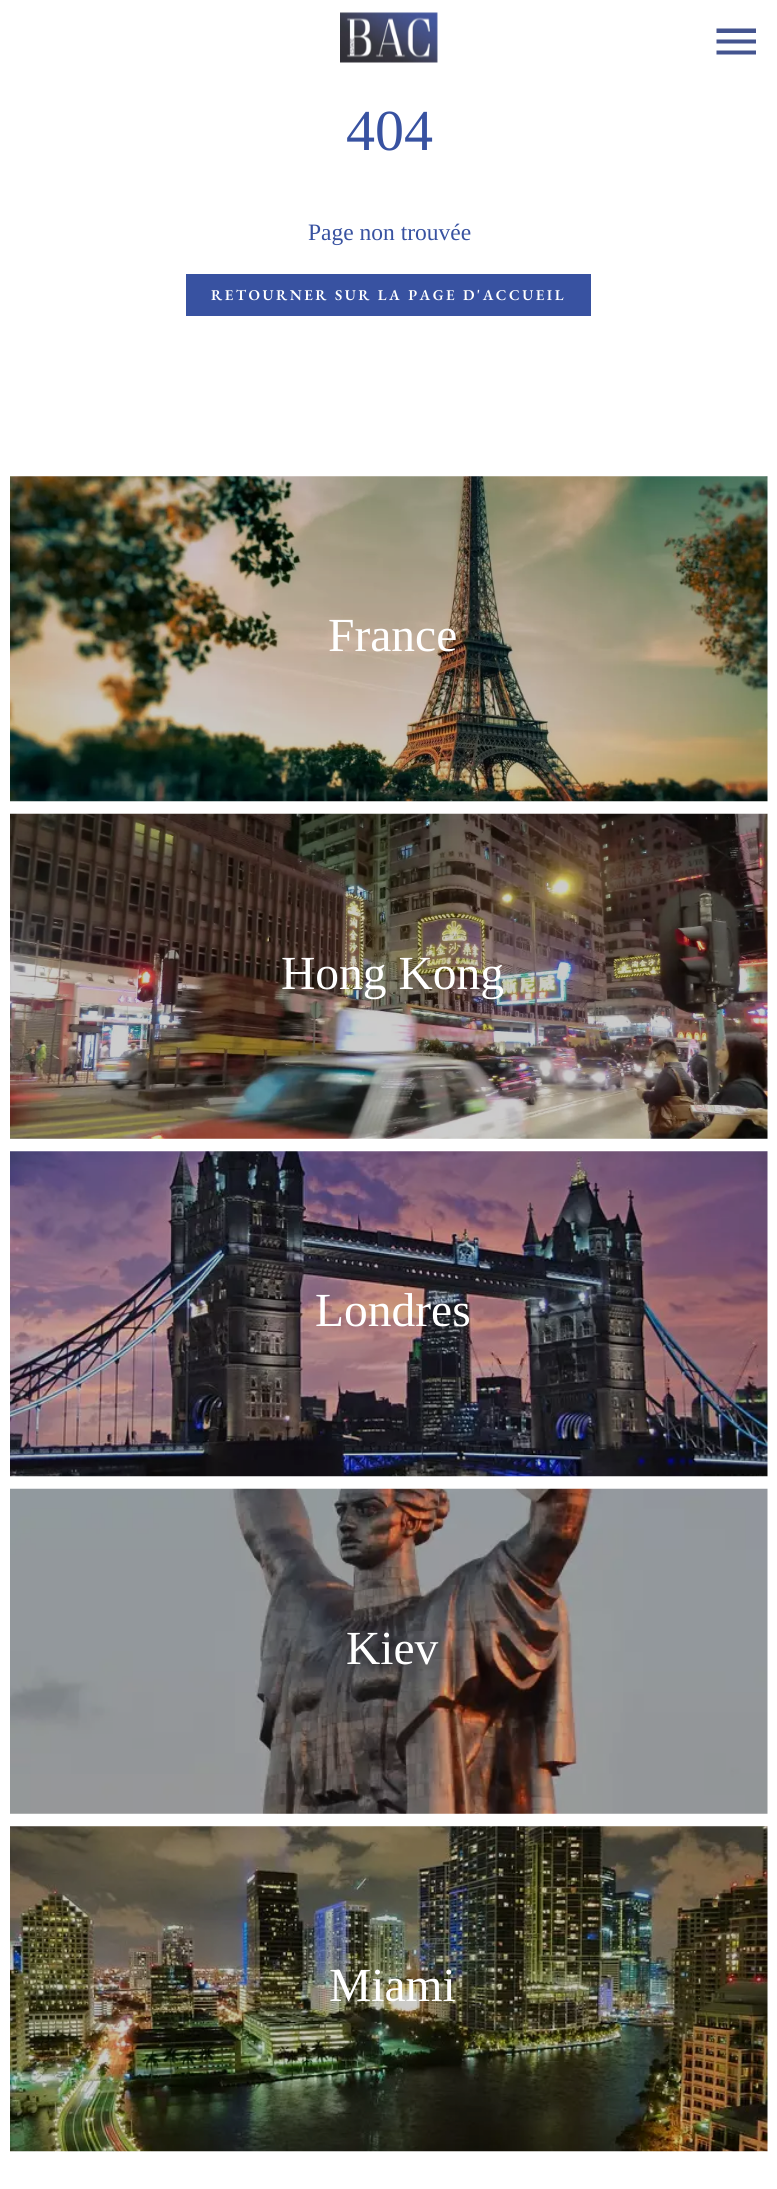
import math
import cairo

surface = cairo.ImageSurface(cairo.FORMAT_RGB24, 777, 2189)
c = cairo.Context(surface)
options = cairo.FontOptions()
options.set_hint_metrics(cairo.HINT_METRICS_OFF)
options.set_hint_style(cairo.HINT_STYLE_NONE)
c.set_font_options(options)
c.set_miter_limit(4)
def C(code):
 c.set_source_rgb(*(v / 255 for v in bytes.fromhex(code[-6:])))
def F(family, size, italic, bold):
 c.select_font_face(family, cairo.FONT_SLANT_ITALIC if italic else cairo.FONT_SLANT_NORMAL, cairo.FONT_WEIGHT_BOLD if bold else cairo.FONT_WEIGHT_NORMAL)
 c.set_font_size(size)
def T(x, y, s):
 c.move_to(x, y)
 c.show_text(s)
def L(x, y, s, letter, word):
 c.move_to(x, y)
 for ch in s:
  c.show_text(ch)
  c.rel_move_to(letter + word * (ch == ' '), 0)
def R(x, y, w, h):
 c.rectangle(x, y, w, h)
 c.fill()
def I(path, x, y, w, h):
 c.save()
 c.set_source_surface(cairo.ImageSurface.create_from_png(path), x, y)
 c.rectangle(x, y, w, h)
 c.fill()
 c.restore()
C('ffffff')
c.paint()
I('1.png',340,12,98,51)
C('44548f')
c.new_path()
c.move_to(716.5,28.5)
c.line_to(756,28.5)
c.line_to(756,33)
c.line_to(716.5,33)
c.close_path()
c.move_to(716.5,39.5)
c.line_to(756,39.5)
c.line_to(756,43.5)
c.line_to(716.5,43.5)
c.close_path()
c.move_to(716.5,50.5)
c.line_to(756,50.5)
c.line_to(756,54.5)
c.line_to(716.5,54.5)
c.close_path()
c.fill()
F('Liberation Serif',58,0,0)
C('3852a1')
T(346,150,'404')
F('Liberation Serif',23.5,0,0)
T(308,240,'Page non trouvée')
R(186,274,405,42)
F('EB Garamond SemiBold',15,0,0)
C('ffffff')
L(211,300,'RETOURNER SUR LA PAGE D\'ACCUEIL',2.5,0)
I('2.png',10,476,758,326)
F('Liberation Serif',47.5,0,0)
T(328,651,'France')
I('3.png',10,813,758,326)
T(281,989,'Hong Kong')
I('4.png',10,1151,758,326)
T(315,1326,'Londres')
I('5.png',10,1488,758,326)
T(346,1664,'Kiev')
I('6.png',10,1826,758,326)
T(329,2001,'Miami')
surface.write_to_png('o.png')
